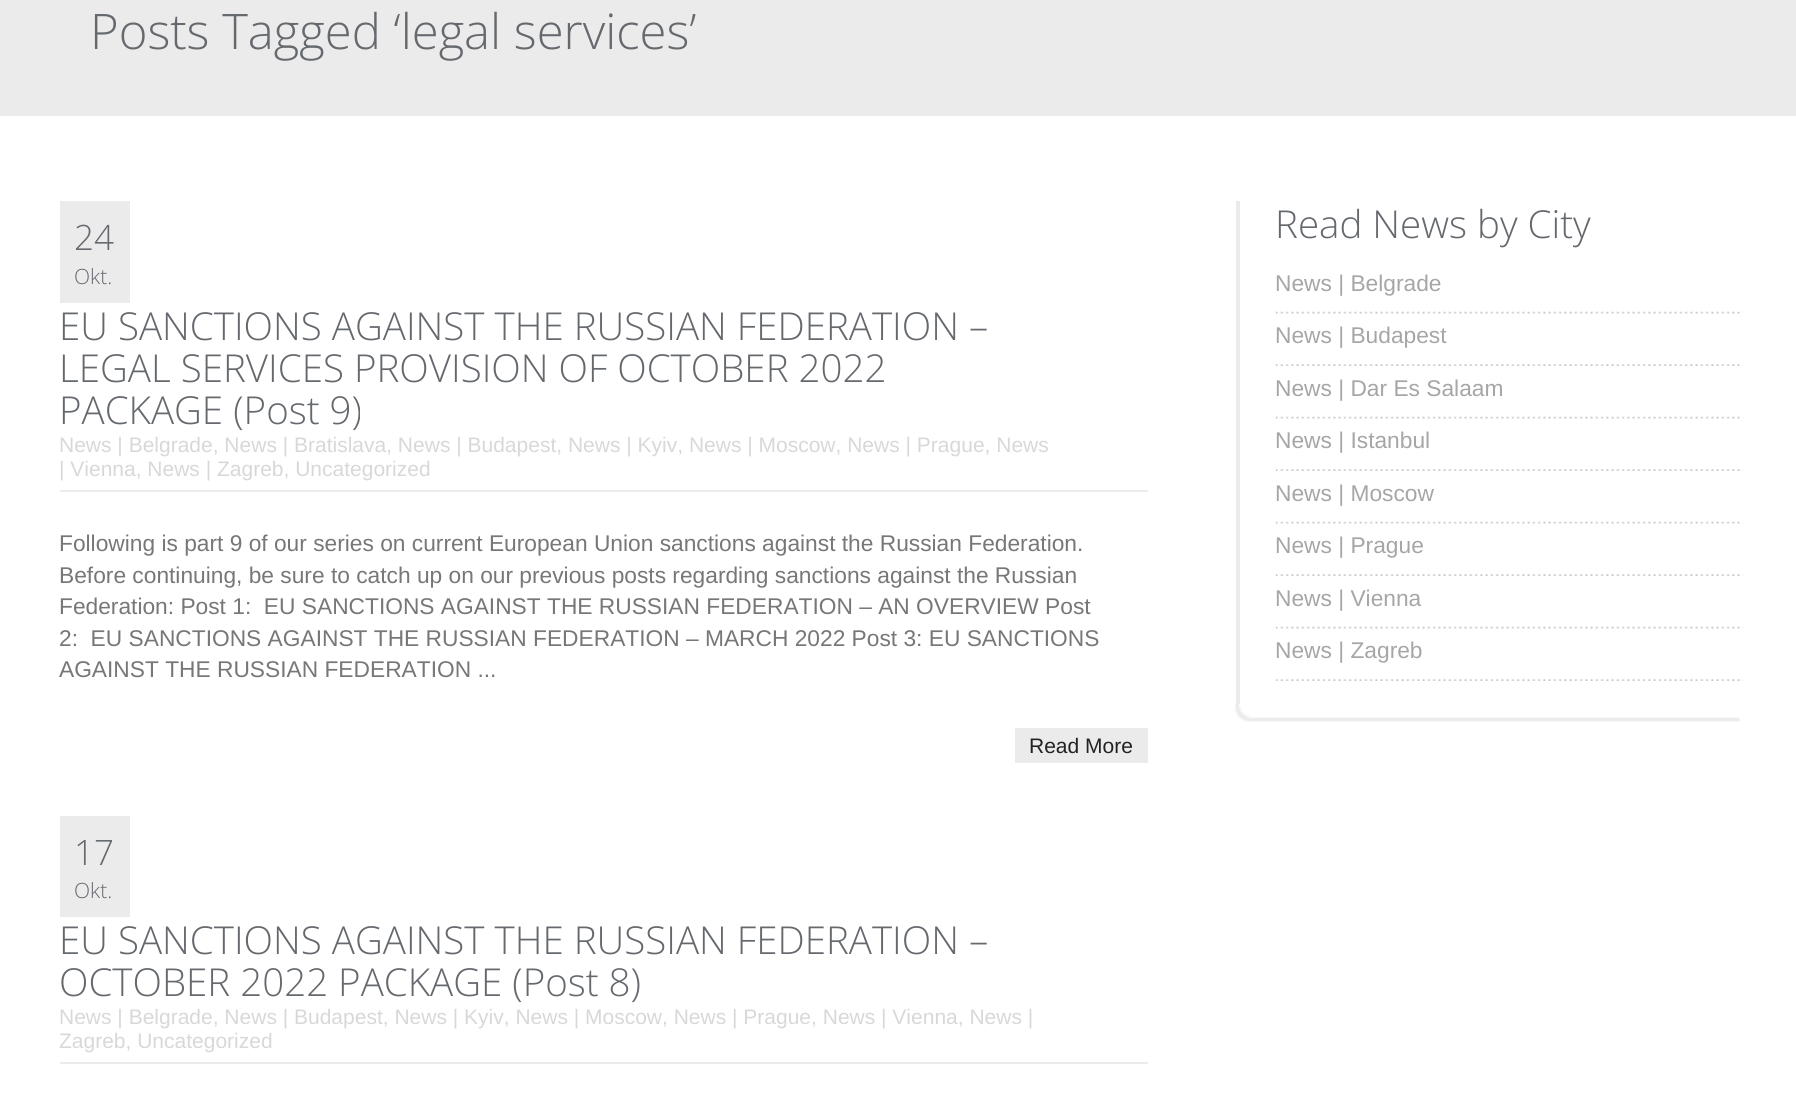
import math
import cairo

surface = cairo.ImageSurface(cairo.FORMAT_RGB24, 1796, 1095)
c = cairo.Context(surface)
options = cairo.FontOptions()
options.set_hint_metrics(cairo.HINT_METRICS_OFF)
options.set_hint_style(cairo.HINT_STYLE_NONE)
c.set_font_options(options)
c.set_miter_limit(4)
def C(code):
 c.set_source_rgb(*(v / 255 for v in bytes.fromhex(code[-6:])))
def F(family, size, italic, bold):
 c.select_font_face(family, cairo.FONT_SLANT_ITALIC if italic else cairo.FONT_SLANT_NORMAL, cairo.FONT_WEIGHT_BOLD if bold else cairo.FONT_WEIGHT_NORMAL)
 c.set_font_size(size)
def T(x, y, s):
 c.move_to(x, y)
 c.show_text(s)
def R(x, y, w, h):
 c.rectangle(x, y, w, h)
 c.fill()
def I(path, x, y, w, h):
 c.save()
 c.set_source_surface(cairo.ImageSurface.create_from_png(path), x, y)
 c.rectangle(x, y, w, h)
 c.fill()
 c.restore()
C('ffffff')
c.paint()
C('ebebeb')
R(0,0,1796,116)
F('Open Sans Light',49,0,0)
C('65696e')
T(90,49,'Posts Tagged ‘legal services’')
C('ebebeb')
R(60,201,70,102)
F('Open Sans Light',35,0,0)
C('65696e')
T(74,250,'24')
F('Open Sans Light',21,0,0)
T(74,284,'Okt.')
C('ebebeb')
R(60,490,1088,2)
F('Open Sans Light',38.5,0,0)
C('65696e')
T(59,340,'EU SANCTIONS AGAINST THE RUSSIAN FEDERATION –')
T(59,382,'LEGAL SERVICES PROVISION OF OCTOBER 2022')
T(59,424,'PACKAGE (Post 9)')
F('Liberation Sans',21,0,0)
C('d9d8d8')
T(59,452,'News | Belgrade, News | Bratislava, News | Budapest, News | Kyiv, News | Moscow, News | Prague, News')
T(59,476,'| Vienna, News | Zagreb, Uncategorized')
F('Liberation Sans',22.75,0,0)
C('777777')
T(59,551,'Following is part 9 of our series on current European Union sanctions against the Russian Federation.')
T(59,583,'Before continuing, be sure to catch up on our previous posts regarding sanctions against the Russian')
T(59,614,'Federation: Post 1:  EU SANCTIONS AGAINST THE RUSSIAN FEDERATION – AN OVERVIEW Post')
T(59,646,'2:  EU SANCTIONS AGAINST THE RUSSIAN FEDERATION – MARCH 2022 Post 3: EU SANCTIONS')
T(59,677,'AGAINST THE RUSSIAN FEDERATION ...')
C('ebebeb')
R(1015,728,133,35)
F('Liberation Sans',21,0,0)
C('222222')
T(1029,753,'Read More')
C('ebebeb')
R(60,816,70,101)
F('Open Sans Light',35,0,0)
C('65696e')
T(74,865,'17')
F('Open Sans Light',21,0,0)
T(74,898,'Okt.')
C('ebebeb')
R(60,1062,1088,2)
F('Open Sans Light',38.5,0,0)
C('65696e')
T(59,954,'EU SANCTIONS AGAINST THE RUSSIAN FEDERATION –')
T(59,996,'OCTOBER 2022 PACKAGE (Post 8)')
F('Liberation Sans',21,0,0)
C('d9d8d8')
T(59,1024,'News | Belgrade, News | Budapest, News | Kyiv, News | Moscow, News | Prague, News | Vienna, News |')
T(59,1048,'Zagreb, Uncategorized')
C('ebebeb')
R(1236,201,4,503)
F('Open Sans Light',38.5,0,0)
C('65696e')
T(1275,238,'Read News by City')
I('1.png',1275,311,468,3)
F('Liberation Sans',22.75,0,0)
C('a6a6a6')
T(1275,291,'News | Belgrade')
I('2.png',1275,364,468,2)
T(1275,343,'News | Budapest')
I('1.png',1275,416,468,3)
T(1275,396,'News | Dar Es Salaam')
I('2.png',1275,469,468,2)
T(1275,448,'News | Istanbul')
I('1.png',1275,521,468,3)
T(1275,501,'News | Moscow')
I('2.png',1275,574,468,2)
T(1275,553,'News | Prague')
I('1.png',1275,626,468,3)
T(1275,606,'News | Vienna')
I('2.png',1275,679,468,2)
T(1275,658,'News | Zagreb')
I('3.png',1235,703,505,19)
surface.write_to_png('o.png')
